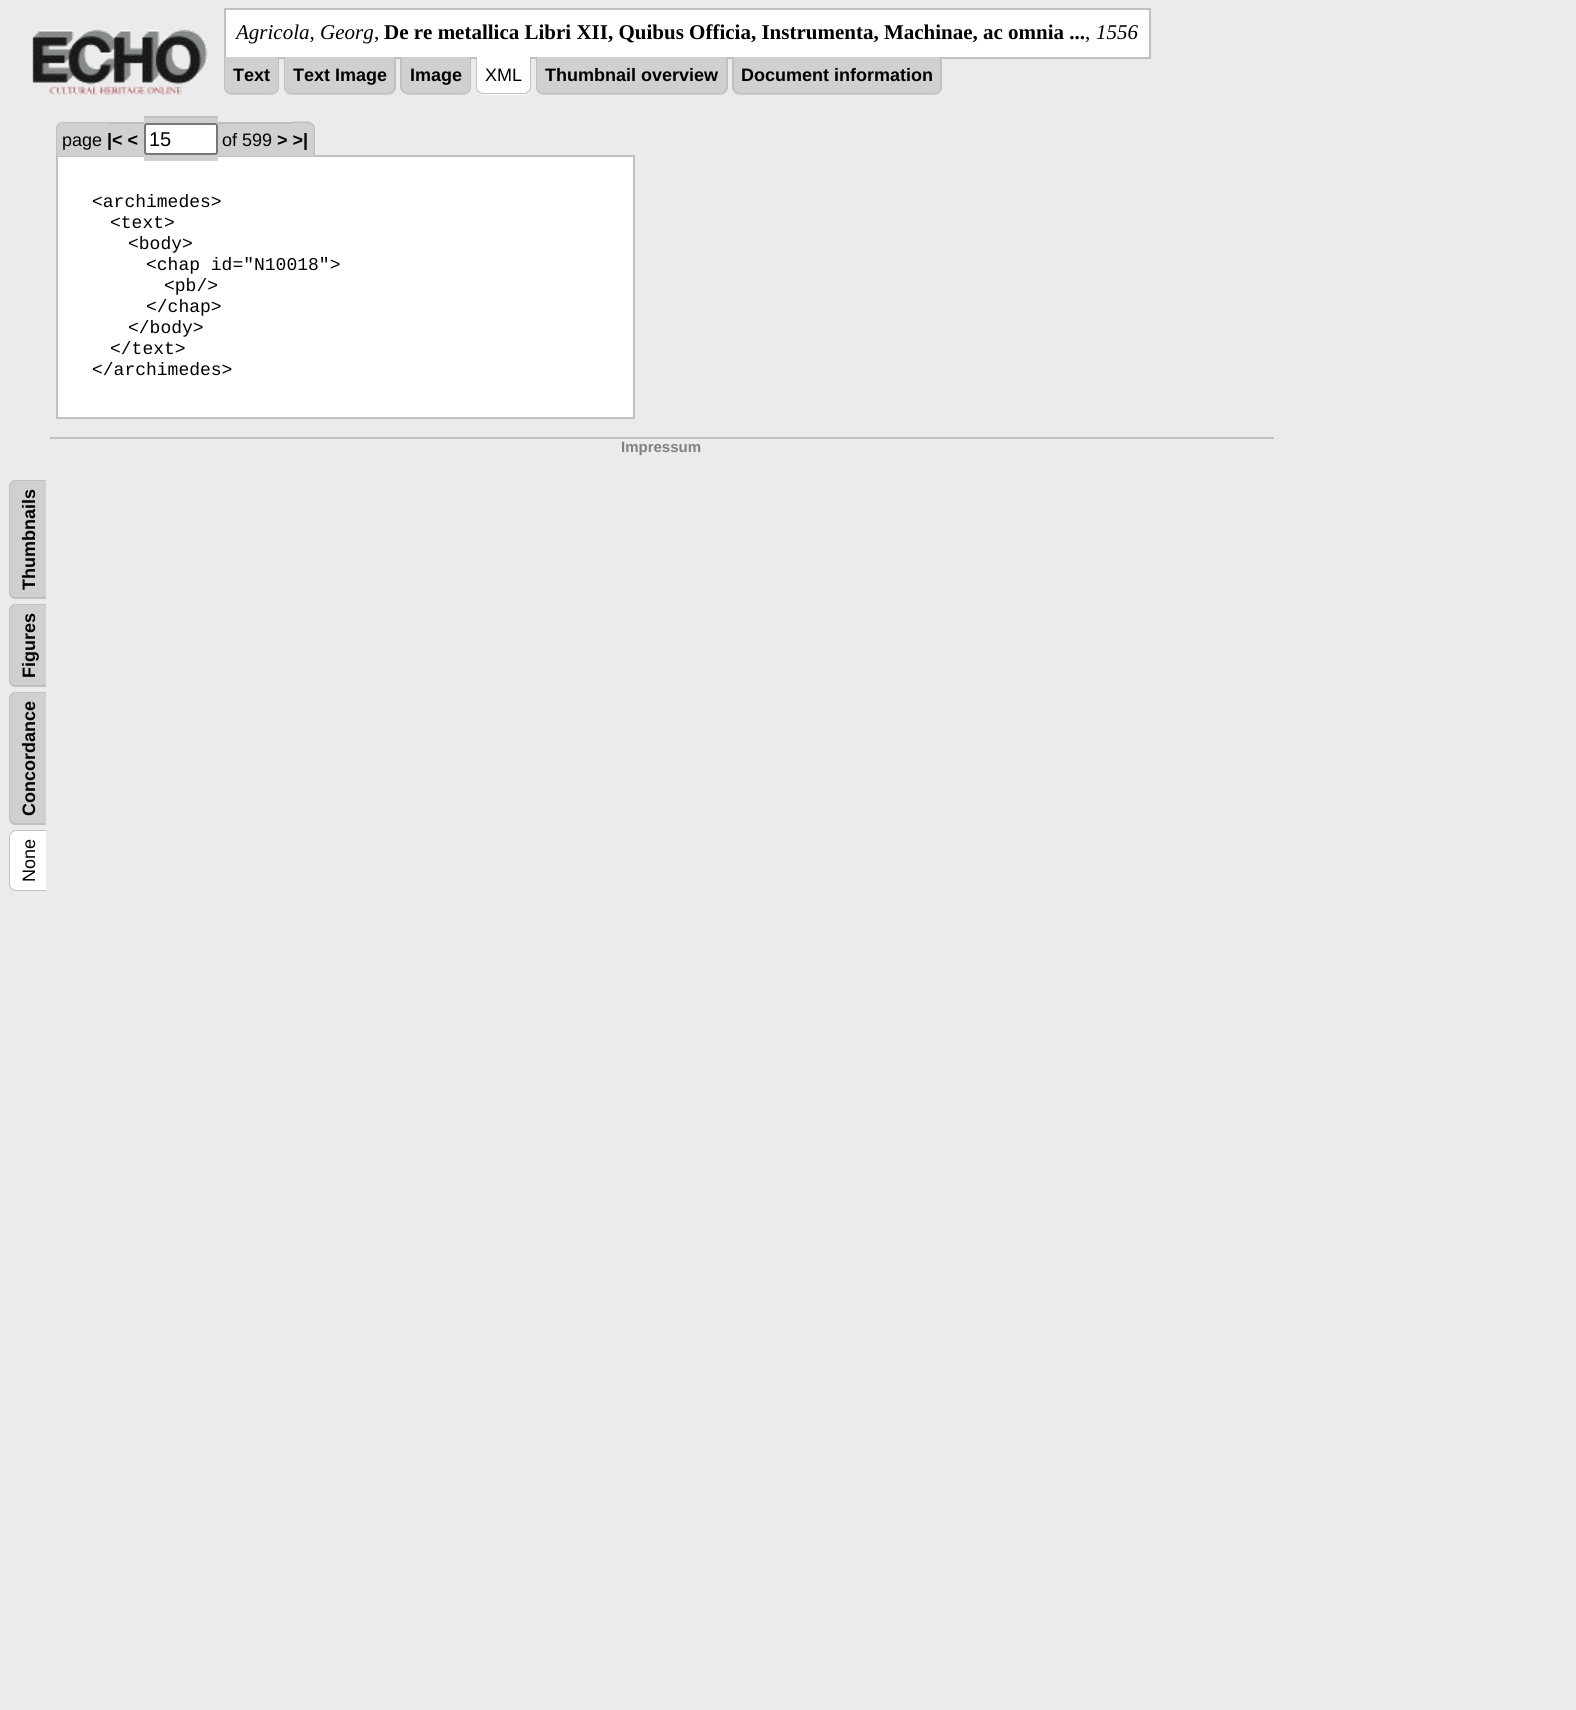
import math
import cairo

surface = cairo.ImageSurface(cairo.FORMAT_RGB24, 1576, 1710)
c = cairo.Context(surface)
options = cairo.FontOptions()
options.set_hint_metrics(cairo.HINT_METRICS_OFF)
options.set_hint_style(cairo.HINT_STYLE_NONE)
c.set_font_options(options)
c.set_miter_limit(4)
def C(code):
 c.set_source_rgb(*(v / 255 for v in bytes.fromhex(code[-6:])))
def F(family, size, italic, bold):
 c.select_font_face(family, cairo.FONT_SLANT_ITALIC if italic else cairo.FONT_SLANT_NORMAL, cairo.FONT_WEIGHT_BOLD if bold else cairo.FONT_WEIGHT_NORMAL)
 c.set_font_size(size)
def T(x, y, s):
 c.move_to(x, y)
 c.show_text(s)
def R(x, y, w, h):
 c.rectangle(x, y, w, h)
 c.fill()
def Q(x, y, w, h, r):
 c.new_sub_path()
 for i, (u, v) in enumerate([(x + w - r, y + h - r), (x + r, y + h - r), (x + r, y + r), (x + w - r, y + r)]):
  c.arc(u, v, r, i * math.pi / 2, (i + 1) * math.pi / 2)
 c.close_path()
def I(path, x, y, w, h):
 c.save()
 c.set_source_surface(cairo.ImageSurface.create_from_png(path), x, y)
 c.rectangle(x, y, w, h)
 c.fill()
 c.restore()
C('ebebeb')
c.paint()
I('1.png',32,29,176,66)
C('ffffff')
c.rectangle(225,9,925,49)
c.fill_preserve()
C('c0c0c0')
c.stroke()
F('Liberation Serif',21,1,0)
C('000000')
T(236,39,'Agricola, Georg')
F('Liberation Serif',21,0,0)
T(374,39,',')
F('Liberation Serif',21,0,1)
T(384,39,'De re metallica Libri XII, Quibus Officia, Instrumenta, Machinae, ac omnia ...')
F('Liberation Serif',21,0,0)
T(1085,39,',')
F('Liberation Serif',21,1,0)
T(1096,39,'1556')
C('d0d0d0')
c.new_path()
c.move_to(224,57)
c.line_to(279,57)
c.line_to(279,87)
c.curve_to(279,91.5,275.5,95,271,95)
c.line_to(232,95)
c.curve_to(227.5,95,224,91.5,224,87)
c.close_path()
c.fill()
C('c0c0c0')
c.set_fill_rule(cairo.FILL_RULE_EVEN_ODD)
c.new_path()
c.move_to(224,57)
c.line_to(279,57)
c.line_to(279,87)
c.curve_to(279,91,276,94,272,94)
c.line_to(231,94)
c.curve_to(227,94,224,91,224,87)
c.close_path()
c.move_to(225,57)
c.line_to(278,57)
c.line_to(278,87)
c.curve_to(278,90,275,93,272,93)
c.line_to(231,93)
c.curve_to(228,93,225,90,225,87)
c.close_path()
c.fill()
F('Liberation Sans',18,0,1)
C('000000')
T(233,81,'Text')
C('d0d0d0')
c.new_path()
c.move_to(284,57)
c.line_to(396,57)
c.line_to(396,87)
c.curve_to(396,91.5,392.5,95,388,95)
c.line_to(292,95)
c.curve_to(287.5,95,284,91.5,284,87)
c.close_path()
c.fill()
C('c0c0c0')
c.new_path()
c.move_to(284,57)
c.line_to(396,57)
c.line_to(396,87)
c.curve_to(396,91,393,94,388,94)
c.line_to(291,94)
c.curve_to(287,94,284,91,284,87)
c.close_path()
c.move_to(285,57)
c.line_to(394,57)
c.line_to(394,87)
c.curve_to(394,90,392,93,388,93)
c.line_to(291,93)
c.curve_to(288,93,285,90,285,87)
c.close_path()
c.fill()
C('000000')
T(293,81,'Text Image')
C('d0d0d0')
c.new_path()
c.move_to(401,57)
c.line_to(471,57)
c.line_to(471,87)
c.curve_to(471,91.5,467.5,95,463,95)
c.line_to(409,95)
c.curve_to(404.5,95,401,91.5,401,87)
c.close_path()
c.fill()
C('c0c0c0')
c.new_path()
c.move_to(400,57)
c.line_to(471,57)
c.line_to(471,87)
c.curve_to(471,91,468,94,464,94)
c.line_to(408,94)
c.curve_to(404,94,400,91,400,87)
c.close_path()
c.move_to(402,57)
c.line_to(470,57)
c.line_to(470,87)
c.curve_to(470,90,467,93,464,93)
c.line_to(408,93)
c.curve_to(405,93,402,90,402,87)
c.close_path()
c.fill()
C('000000')
T(410,81,'Image')
C('ffffff')
c.new_path()
c.move_to(476,57)
c.line_to(531,57)
c.line_to(531,87)
c.curve_to(531,91.5,527.5,95,523,95)
c.line_to(484,95)
c.curve_to(479.5,95,476,91.5,476,87)
c.close_path()
c.fill()
C('c0c0c0')
c.new_path()
c.move_to(476,57)
c.line_to(531,57)
c.line_to(531,87)
c.curve_to(531,91,528,94,524,94)
c.line_to(483,94)
c.curve_to(479,94,476,91,476,87)
c.close_path()
c.move_to(477,57)
c.line_to(530,57)
c.line_to(530,87)
c.curve_to(530,90,527,93,524,93)
c.line_to(483,93)
c.curve_to(480,93,477,90,477,87)
c.close_path()
c.fill()
F('Liberation Sans',18,0,0)
C('000000')
T(485,81,'XML')
C('d0d0d0')
c.new_path()
c.move_to(536,57)
c.line_to(728,57)
c.line_to(728,87)
c.curve_to(728,91.5,724.5,95,720,95)
c.line_to(544,95)
c.curve_to(539.5,95,536,91.5,536,87)
c.close_path()
c.fill()
C('c0c0c0')
c.new_path()
c.move_to(536,57)
c.line_to(728,57)
c.line_to(728,87)
c.curve_to(728,91,724,94,720,94)
c.line_to(543,94)
c.curve_to(539,94,536,91,536,87)
c.close_path()
c.move_to(537,57)
c.line_to(726,57)
c.line_to(726,87)
c.curve_to(726,90,723,93,720,93)
c.line_to(543,93)
c.curve_to(540,93,537,90,537,87)
c.close_path()
c.fill()
F('Liberation Sans',18,0,1)
C('000000')
T(545,81,'Thumbnail overview')
C('d0d0d0')
c.new_path()
c.move_to(732,57)
c.line_to(942,57)
c.line_to(942,87)
c.curve_to(942,91.5,938.5,95,934,95)
c.line_to(740,95)
c.curve_to(735.5,95,732,91.5,732,87)
c.close_path()
c.fill()
C('c0c0c0')
c.new_path()
c.move_to(732,57)
c.line_to(942,57)
c.line_to(942,87)
c.curve_to(942,91,939,94,934,94)
c.line_to(740,94)
c.curve_to(735,94,732,91,732,87)
c.close_path()
c.move_to(734,57)
c.line_to(940,57)
c.line_to(940,87)
c.curve_to(940,90,938,93,934,93)
c.line_to(740,93)
c.curve_to(736,93,734,90,734,87)
c.close_path()
c.fill()
C('000000')
T(741,81,'Document information')
C('ffffff')
c.rectangle(57,156,577,262)
c.fill_preserve()
C('c0c0c0')
c.stroke()
C('d0d0d0')
c.new_path()
c.move_to(64,122)
c.line_to(108,122)
c.line_to(108,156)
c.line_to(56,156)
c.line_to(56,130)
c.curve_to(56,125.5,59.5,122,64,122)
c.close_path()
c.fill()
C('c0c0c0')
c.new_path()
c.move_to(63,122)
c.line_to(108,122)
c.line_to(108,156)
c.line_to(56,156)
c.line_to(56,129)
c.curve_to(56,125,59,122,63,122)
c.close_path()
c.move_to(63,123)
c.line_to(108,123)
c.line_to(108,156)
c.line_to(57,156)
c.line_to(57,129)
c.curve_to(57,126,60,123,63,123)
c.close_path()
c.fill()
C('d0d0d0')
R(108,124,15,32)
C('c0c0c0')
R(108,122,15,2)
C('d0d0d0')
R(123,122,5,34)
C('c0c0c0')
R(123,122,15,2)
C('d0d0d0')
R(128,124,10,32)
R(138,122,6,34)
C('c0c0c0')
R(138,122,6,2)
C('d0d0d0')
R(144,118,74,43)
C('c0c0c0')
R(144,116,74,2)
C('d0d0d0')
R(218,122,4,34)
C('c0c0c0')
R(218,122,70,2)
C('d0d0d0')
R(222,124,66,32)
R(288,122,5,34)
C('c0c0c0')
R(288,122,5,2)
C('d0d0d0')
c.new_path()
c.move_to(293,122)
c.line_to(307,122)
c.curve_to(311.5,122,315,125.5,315,130)
c.line_to(315,156)
c.line_to(293,156)
c.close_path()
c.fill()
C('c0c0c0')
c.new_path()
c.move_to(292.5,121.5)
c.line_to(307.5,121.5)
c.curve_to(311.5,121.5,315,125,315,129)
c.line_to(315,156)
c.line_to(292.5,156)
c.close_path()
c.move_to(292.5,123)
c.line_to(307.5,123)
c.curve_to(311,123,313.5,125.5,313.5,129)
c.line_to(313.5,156)
c.line_to(292.5,156)
c.close_path()
c.fill()
F('Liberation Sans',18,0,0)
C('000000')
T(62,146,'page')
F('Liberation Sans',18,0,1)
T(107,146,'|< <')
C('ffffff')
Q(145,124,72,30,2)
c.fill_preserve()
C('767676')
c.stroke()
F('Liberation Sans',20,0,0)
C('000000')
T(149,146,'15')
F('Liberation Sans',18,0,0)
T(222,146,'of 599')
F('Liberation Sans',18,0,1)
T(277,146,'> >|')
F('Liberation Mono',18,0,0)
T(92,207,'<archimedes>')
T(110,228,'<text>')
T(128,249,'<body>')
T(146,270,'<chap id="N10018">')
T(164,291,'<pb/>')
T(146,312,'</chap>')
T(128,333,'</body>')
T(110,354,'</text>')
T(92,375,'</archimedes>')
C('d0d0d0')
c.set_fill_rule(cairo.FILL_RULE_WINDING)
c.new_path()
c.move_to(9,591)
c.line_to(9,487)
c.curve_to(9,483,12,480,16,480)
c.line_to(46,480)
c.line_to(46,599)
c.line_to(16,599)
c.curve_to(12,599,9,596,9,591)
c.close_path()
c.fill()
C('c0c0c0')
c.set_fill_rule(cairo.FILL_RULE_EVEN_ODD)
c.new_path()
c.move_to(9,591)
c.line_to(9,487)
c.curve_to(9,483,12,480,16,480)
c.line_to(46,480)
c.line_to(46,599)
c.line_to(16,599)
c.curve_to(12,599,9,596,9,591)
c.close_path()
c.move_to(10,591)
c.line_to(10,487)
c.curve_to(10,484,13,481,16,481)
c.line_to(46,481)
c.line_to(46,597)
c.line_to(16,597)
c.curve_to(13,597,10,595,10,591)
c.close_path()
c.fill()
F('Liberation Sans',18,0,1)
C('000000')
c.save()
c.translate(35,590)
c.rotate(-90 * math.pi / 180)
T(0,0,'Thumbnails')
c.restore()
C('d0d0d0')
c.set_fill_rule(cairo.FILL_RULE_WINDING)
c.new_path()
c.move_to(9,679)
c.line_to(9,611)
c.curve_to(9,607,12,604,16,604)
c.line_to(46,604)
c.line_to(46,687)
c.line_to(16,687)
c.curve_to(12,687,9,684,9,679)
c.close_path()
c.fill()
C('c0c0c0')
c.set_fill_rule(cairo.FILL_RULE_EVEN_ODD)
c.new_path()
c.move_to(9,679)
c.line_to(9,611)
c.curve_to(9,607,12,604,16,604)
c.line_to(46,604)
c.line_to(46,687)
c.line_to(16,687)
c.curve_to(12,687,9,684,9,679)
c.close_path()
c.move_to(10,679)
c.line_to(10,611)
c.curve_to(10,608,13,605,16,605)
c.line_to(46,605)
c.line_to(46,685)
c.line_to(16,685)
c.curve_to(13,685,10,683,10,679)
c.close_path()
c.fill()
C('000000')
c.save()
c.translate(35,678)
c.rotate(-90 * math.pi / 180)
T(0,0,'Figures')
c.restore()
C('d0d0d0')
c.set_fill_rule(cairo.FILL_RULE_WINDING)
c.new_path()
c.move_to(9,817)
c.line_to(9,699)
c.curve_to(9,695,12,692,16,692)
c.line_to(46,692)
c.line_to(46,825)
c.line_to(16,825)
c.curve_to(12,825,9,822,9,817)
c.close_path()
c.fill()
C('c0c0c0')
c.set_fill_rule(cairo.FILL_RULE_EVEN_ODD)
c.new_path()
c.move_to(9,817)
c.line_to(9,699)
c.curve_to(9,695,12,692,16,692)
c.line_to(46,692)
c.line_to(46,825)
c.line_to(16,825)
c.curve_to(12,825,9,822,9,817)
c.close_path()
c.move_to(10,817)
c.line_to(10,699)
c.curve_to(10,696,13,693,16,693)
c.line_to(46,693)
c.line_to(46,823)
c.line_to(16,823)
c.curve_to(13,823,10,821,10,817)
c.close_path()
c.fill()
C('000000')
c.save()
c.translate(35,816)
c.rotate(-90 * math.pi / 180)
T(0,0,'Concordance')
c.restore()
C('ffffff')
c.set_fill_rule(cairo.FILL_RULE_WINDING)
c.new_path()
c.move_to(9,884)
c.line_to(9,837)
c.curve_to(9,833,12,830,16,830)
c.line_to(46,830)
c.line_to(46,891)
c.line_to(16,891)
c.curve_to(12,891,9,888,9,884)
c.close_path()
c.fill()
C('c0c0c0')
c.set_fill_rule(cairo.FILL_RULE_EVEN_ODD)
c.new_path()
c.move_to(9,884)
c.line_to(9,837)
c.curve_to(9,833,12,830,16,830)
c.line_to(46,830)
c.line_to(46,891)
c.line_to(16,891)
c.curve_to(12,891,9,888,9,884)
c.close_path()
c.move_to(10,884)
c.line_to(10,837)
c.curve_to(10,834,13,831,16,831)
c.line_to(46,831)
c.line_to(46,890)
c.line_to(16,890)
c.curve_to(13,890,10,887,10,884)
c.close_path()
c.fill()
F('Liberation Sans',18,0,0)
C('000000')
c.save()
c.translate(35,882)
c.rotate(-90 * math.pi / 180)
T(0,0,'None')
c.restore()
C('c0c0c0')
R(50,437,1224,2)
F('Liberation Sans',15,0,1)
C('808080')
T(621,452,'Impressum')
surface.write_to_png('o.png')
